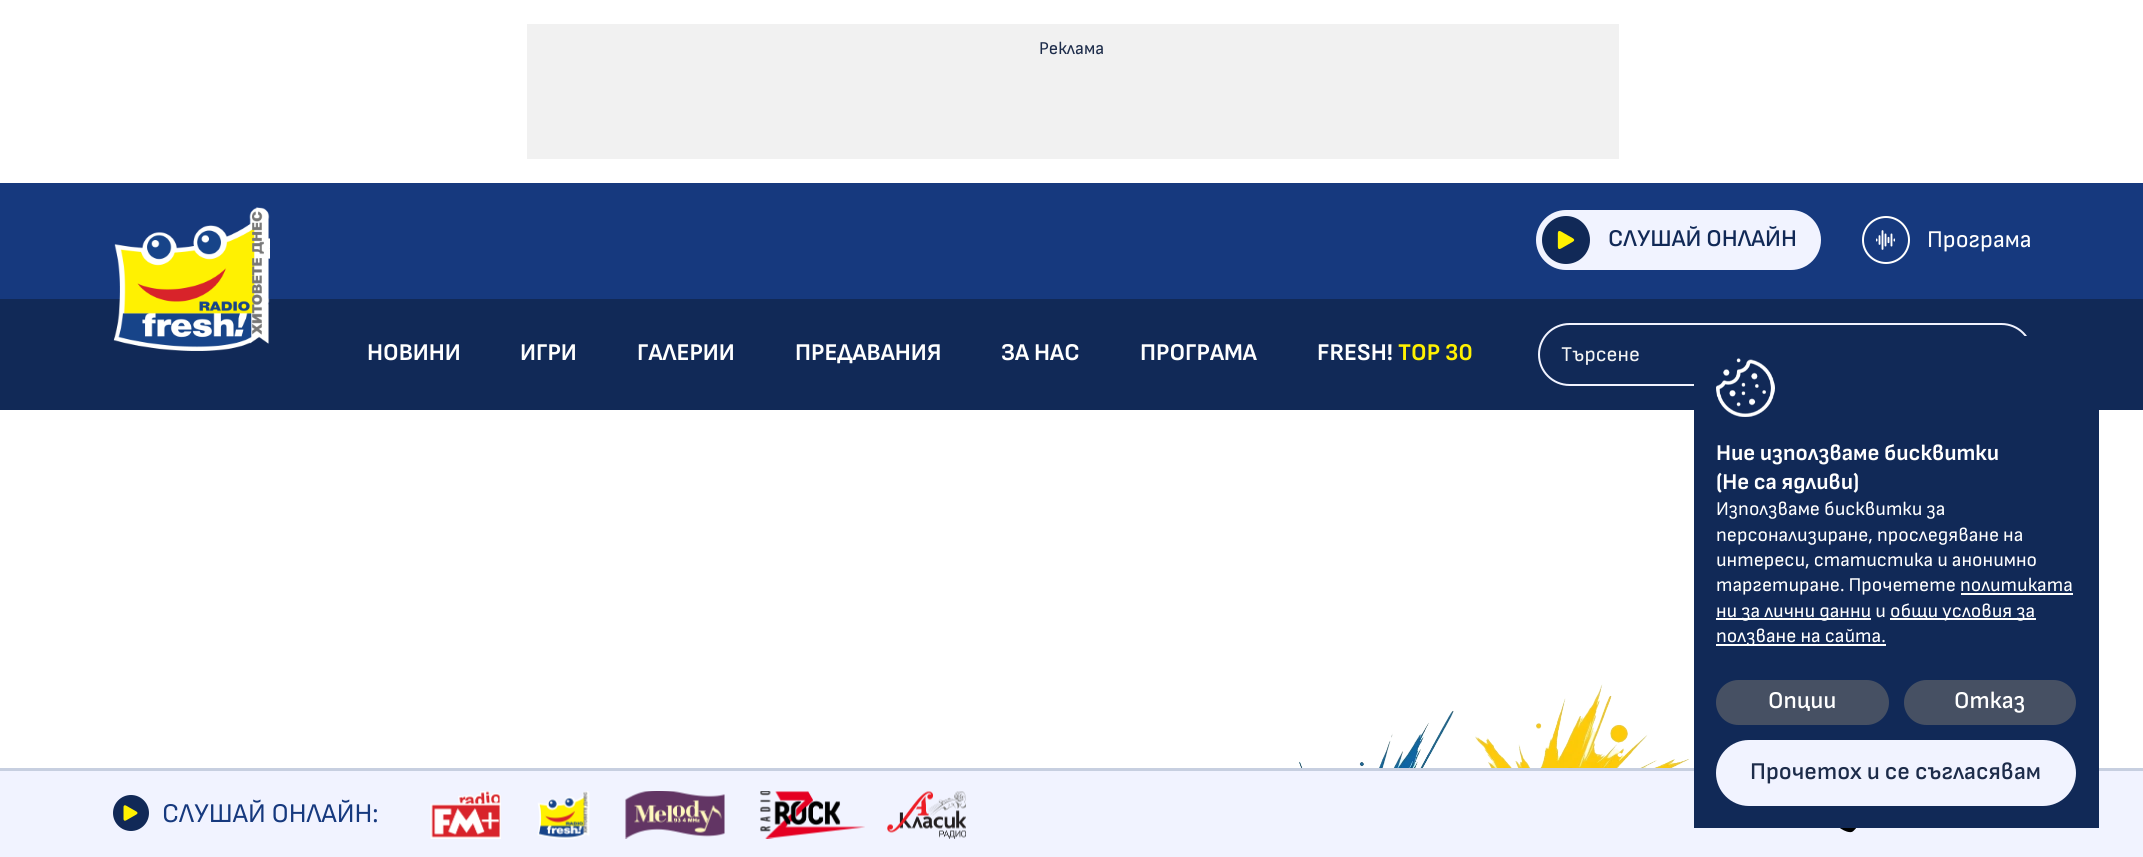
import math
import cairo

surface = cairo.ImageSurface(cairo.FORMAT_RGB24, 2143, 857)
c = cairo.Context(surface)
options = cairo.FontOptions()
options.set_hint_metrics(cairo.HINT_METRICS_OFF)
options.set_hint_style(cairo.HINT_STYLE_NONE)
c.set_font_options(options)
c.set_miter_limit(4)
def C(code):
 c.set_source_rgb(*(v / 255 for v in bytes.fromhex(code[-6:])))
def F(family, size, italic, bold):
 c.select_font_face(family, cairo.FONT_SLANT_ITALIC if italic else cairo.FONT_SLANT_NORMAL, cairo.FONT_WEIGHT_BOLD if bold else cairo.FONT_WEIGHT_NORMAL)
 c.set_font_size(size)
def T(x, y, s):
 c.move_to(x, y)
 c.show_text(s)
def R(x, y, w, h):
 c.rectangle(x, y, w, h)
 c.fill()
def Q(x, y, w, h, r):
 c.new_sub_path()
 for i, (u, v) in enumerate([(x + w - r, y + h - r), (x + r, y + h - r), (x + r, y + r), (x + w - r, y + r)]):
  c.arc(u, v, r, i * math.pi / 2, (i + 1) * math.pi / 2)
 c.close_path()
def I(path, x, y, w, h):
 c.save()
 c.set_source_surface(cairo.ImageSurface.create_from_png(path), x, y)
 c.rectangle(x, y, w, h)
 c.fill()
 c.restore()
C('ffffff')
c.paint()
C('f1f1f1')
R(527,24,1092,135)
F('Sofia Sans',18,0,0)
C('1d2c4a')
T(1039,54,'Реклама')
C('16397e')
R(0,183,2143,116)
C('112957')
R(0,299,2143,111)
I('1.png',113,207,157,144)
C('f1f3ff')
Q(1536,210,285,60,30)
c.fill()
C('112957')
c.arc(1566,240,24,0,2 * math.pi)
c.fill()
I('2.png',1557,231,18,18)
F('Sofia Sans SemiBold',24,0,0)
T(1608,246,'СЛУШАЙ ОНЛАЙН')
c.new_path()
c.arc(1886,240,23,0,2 * math.pi)
C('ffffff')
c.stroke()
I('3.png',1876,230,19,20)
F('Sofia Sans',24,0,0)
T(1927,247,'Програма')
F('Sofia Sans',24,0,1)
T(367,360,'НОВИНИ')
T(520,360,'ИГРИ')
T(637,360,'ГАЛЕРИИ')
T(795,360,'ПРЕДАВАНИЯ')
T(1001,360,'ЗА НАС')
T(1140,360,'ПРОГРАМА')
T(1317,360,'FRESH!')
C('fff101')
T(1398,360,'TOP 30')
Q(1539,324,493,61,30.5)
C('f1f3ff')
c.stroke()
F('Sofia Sans',21,0,0)
C('f4f4f4')
T(1561,361,'Търсене')
I('4.png',1299,684,390,84)
C('f1f3ff')
R(0,771,2143,86)
C('c7cfe0')
R(0,768,2143,3)
C('112957')
c.arc(131,813,18,0,2 * math.pi)
c.fill()
I('5.png',123,805,15,16)
F('Sofia Sans',27,0,0)
C('16397e')
T(162,822,'СЛУШАЙ ОНЛАЙН:')
I('6.png',430,791,71,48)
I('7.png',537,791,53,48)
I('8.png',625,791,100,48)
I('9.png',760,791,105,48)
I('10.png',887,791,79,48)
I('11.png',1840,828,16,5)
C('112957')
R(1694,336,405,492)
I('12.png',1716,358,59,59)
F('Sofia Sans',22.5,0,1)
C('ffffff')
T(1716,460,'Ние използваме бисквитки')
T(1716,489,'(Не са ядливи)')
F('Sofia Sans',19.5,0,0)
T(1716,515,'Използваме бисквитки за')
T(1716,541,'персонализиране, проследяване на')
T(1716,566,'интереси, статистика и анонимно')
T(1716,591,'таргетиране. Прочетете политиката')
R(1716,618,155,2)
T(1716,617,'ни за лични данни и')
R(1961,593,112,2)
R(1890,618,146,2)
T(1890,617,'общи условия за')
R(1716,644,170,2)
T(1716,642,'ползване на сайта.')
C('465063')
Q(1716,680,173,45,22.5)
c.fill()
F('Sofia Sans SemiBold',24,0,0)
C('ffffff')
T(1768,708,'Опции')
C('465063')
Q(1904,680,172,45,22.5)
c.fill()
C('ffffff')
T(1954,708,'Отказ')
C('f1f3ff')
Q(1716,740,360,66,33)
c.fill()
C('1d2c4a')
T(1750,779,'Прочетох и се съгласявам')
surface.write_to_png('o.png')
